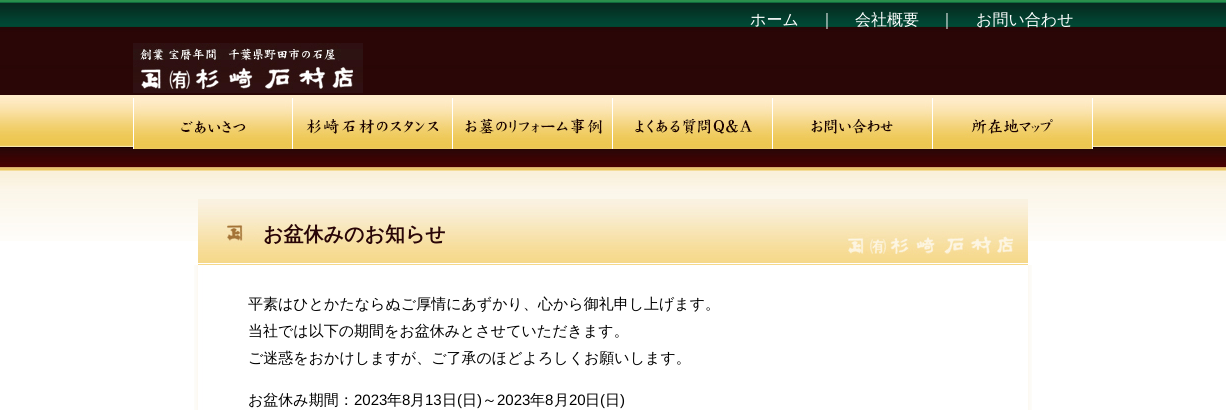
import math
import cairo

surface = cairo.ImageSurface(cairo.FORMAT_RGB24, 1226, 410)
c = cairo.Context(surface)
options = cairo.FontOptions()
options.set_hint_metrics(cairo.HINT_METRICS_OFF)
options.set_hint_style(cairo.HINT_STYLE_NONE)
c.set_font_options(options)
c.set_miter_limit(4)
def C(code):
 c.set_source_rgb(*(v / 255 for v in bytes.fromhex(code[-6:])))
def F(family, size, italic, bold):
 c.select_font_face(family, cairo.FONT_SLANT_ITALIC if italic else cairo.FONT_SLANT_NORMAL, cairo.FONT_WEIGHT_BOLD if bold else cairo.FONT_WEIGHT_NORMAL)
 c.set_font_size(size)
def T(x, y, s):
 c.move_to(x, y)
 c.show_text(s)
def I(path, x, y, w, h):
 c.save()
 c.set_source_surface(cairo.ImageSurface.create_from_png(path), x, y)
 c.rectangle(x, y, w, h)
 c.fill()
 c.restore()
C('ffffff')
c.paint()
I('1.png',0,0,1226,241)
F('WenQuanYi Zen Hei Medium',16,0,0)
C('ffffff')
T(750,25,'ホーム')
T(819,25,'｜')
T(855,25,'会社概要')
T(939,25,'｜')
T(976,25,'お問い合わせ')
I('2.png',133,43,230,50)
I('3.png',133,98,160,51)
I('4.png',293,98,160,51)
I('5.png',453,98,160,51)
I('6.png',613,98,160,51)
I('7.png',773,98,160,51)
I('8.png',933,98,160,51)
I('9.png',198,199,830,66)
F('WenQuanYi Zen Hei',20,0,1)
C('290507')
T(263,241,'お盆休みのお知らせ')
I('10.png',194,265,838,145)
F('WenQuanYi Zen Hei Medium',15,0,0)
C('000000')
T(248,309,'平素はひとかたならぬご厚情にあずかり、心から御礼申し上げます。')
T(248,336,'当社では以下の期間をお盆休みとさせていただきます。')
T(248,363,'ご迷惑をおかけしますが、ご了承のほどよろしくお願いします。')
T(248,405,'お盆休み期間：')
F('Liberation Sans',15,0,0)
T(354,405,'2023')
F('WenQuanYi Zen Hei Medium',15,0,0)
T(387,405,'年')
F('Liberation Sans',15,0,0)
T(402,405,'8')
F('WenQuanYi Zen Hei Medium',15,0,0)
T(410,405,'月')
F('Liberation Sans',15,0,0)
T(425,405,'13')
F('WenQuanYi Zen Hei Medium',15,0,0)
T(442,405,'日')
F('Liberation Sans',15,0,0)
T(457,405,'(')
F('WenQuanYi Zen Hei Medium',15,0,0)
T(462,405,'日')
F('Liberation Sans',15,0,0)
T(477,405,')')
F('WenQuanYi Zen Hei Medium',15,0,0)
T(482,405,'～')
F('Liberation Sans',15,0,0)
T(497,405,'2023')
F('WenQuanYi Zen Hei Medium',15,0,0)
T(530,405,'年')
F('Liberation Sans',15,0,0)
T(545,405,'8')
F('WenQuanYi Zen Hei Medium',15,0,0)
T(554,405,'月')
F('Liberation Sans',15,0,0)
T(569,405,'20')
F('WenQuanYi Zen Hei Medium',15,0,0)
T(585,405,'日')
F('Liberation Sans',15,0,0)
T(600,405,'(')
F('WenQuanYi Zen Hei Medium',15,0,0)
T(605,405,'日')
F('Liberation Sans',15,0,0)
T(620,405,')')
surface.write_to_png('o.png')
